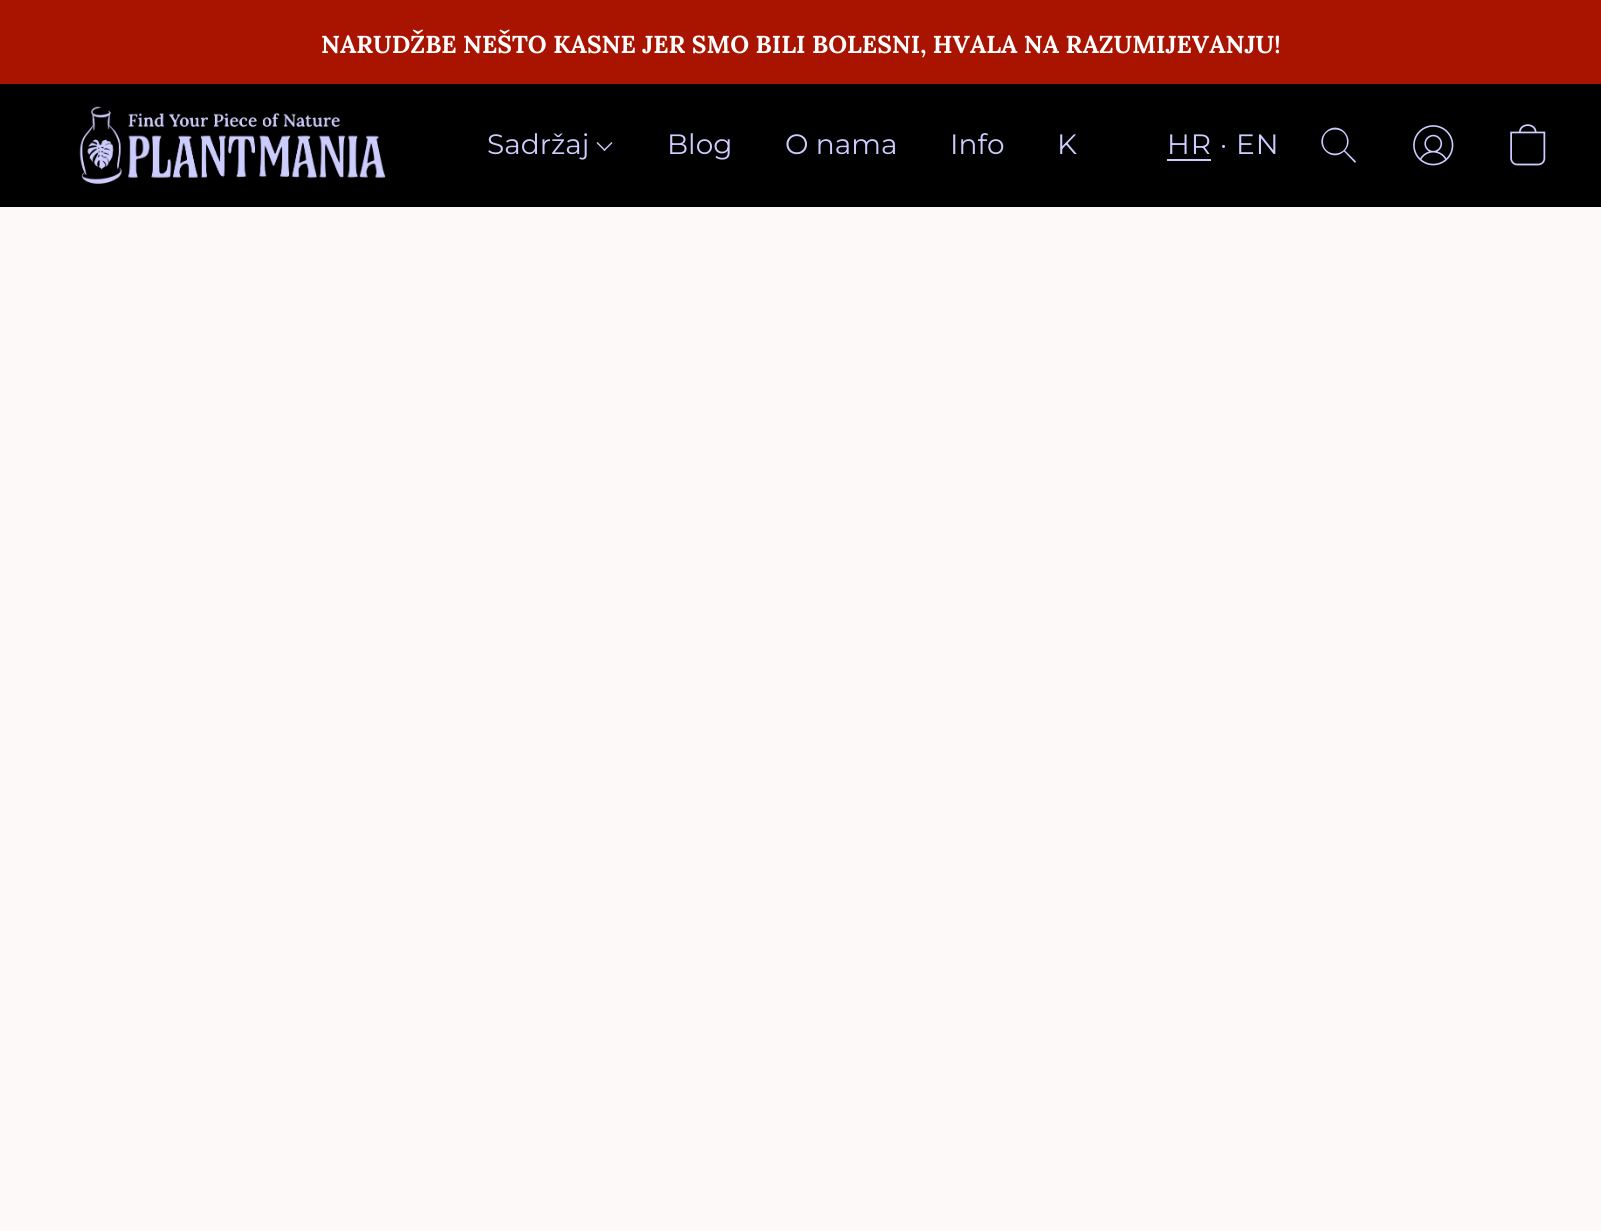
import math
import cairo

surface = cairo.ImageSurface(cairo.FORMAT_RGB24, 1601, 1231)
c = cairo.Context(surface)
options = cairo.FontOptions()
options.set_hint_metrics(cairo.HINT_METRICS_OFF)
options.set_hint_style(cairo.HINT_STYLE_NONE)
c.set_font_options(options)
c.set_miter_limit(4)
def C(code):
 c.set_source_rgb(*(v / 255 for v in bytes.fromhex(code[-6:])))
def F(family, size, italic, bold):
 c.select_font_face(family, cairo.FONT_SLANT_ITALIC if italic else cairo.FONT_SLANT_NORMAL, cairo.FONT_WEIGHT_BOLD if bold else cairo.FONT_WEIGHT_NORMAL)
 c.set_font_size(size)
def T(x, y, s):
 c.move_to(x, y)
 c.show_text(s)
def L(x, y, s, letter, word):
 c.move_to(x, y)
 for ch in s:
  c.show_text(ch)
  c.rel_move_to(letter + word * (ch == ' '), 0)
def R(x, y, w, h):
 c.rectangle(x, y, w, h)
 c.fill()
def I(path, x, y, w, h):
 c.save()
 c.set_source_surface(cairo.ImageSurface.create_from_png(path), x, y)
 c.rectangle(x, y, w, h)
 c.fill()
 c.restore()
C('fcf9f8')
c.paint()
C('a91400')
R(0,0,1601,84)
F('Lora',24.5,0,1)
C('ffffff')
T(321,53,'NARUDŽBE NEŠTO KASNE JER SMO BILI BOLESNI, HVALA NA RAZUMIJEVANJU!')
C('000000')
R(0,84,1601,123)
I('1.png',79,106,307,78)
F('Montserrat Thin',28,0,0)
C('ccccff')
T(487,154,'Sadržaj')
c.new_path()
c.move_to(603.5,150)
c.line_to(611.5,142)
c.line_to(612.5,143)
c.line_to(604.5,151)
c.close_path()
c.fill()
c.new_path()
c.move_to(596.5,143)
c.line_to(597.5,142)
c.line_to(605.5,150)
c.line_to(604.5,151)
c.close_path()
c.fill()
T(667,154,'Blog')
T(785,154,'O nama')
T(950,154,'Info')
T(1057,154,'K')
L(1167,154,'HR',1,0)
R(1167,159,44,2)
L(1220,154,'·',1,0)
L(1236,154,'EN',1,0)
c.set_fill_rule(cairo.FILL_RULE_EVEN_ODD)
c.new_path()
c.move_to(1347,141.5)
c.curve_to(1347,125.5,1323,125.5,1323,141.5)
c.curve_to(1323,157.5,1347,157.5,1347,141.5)
c.close_path()
c.move_to(1356,161.5)
c.line_to(1355,163)
c.line_to(1344,151.5)
c.curve_to(1331,163.5,1313,144.5,1325.5,132)
c.curve_to(1338,119,1356.5,137.5,1345,150.5)
c.close_path()
c.fill()
I('2.png',1413,125,41,41)
I('3.png',1510,124,36,42)
surface.write_to_png('o.png')
